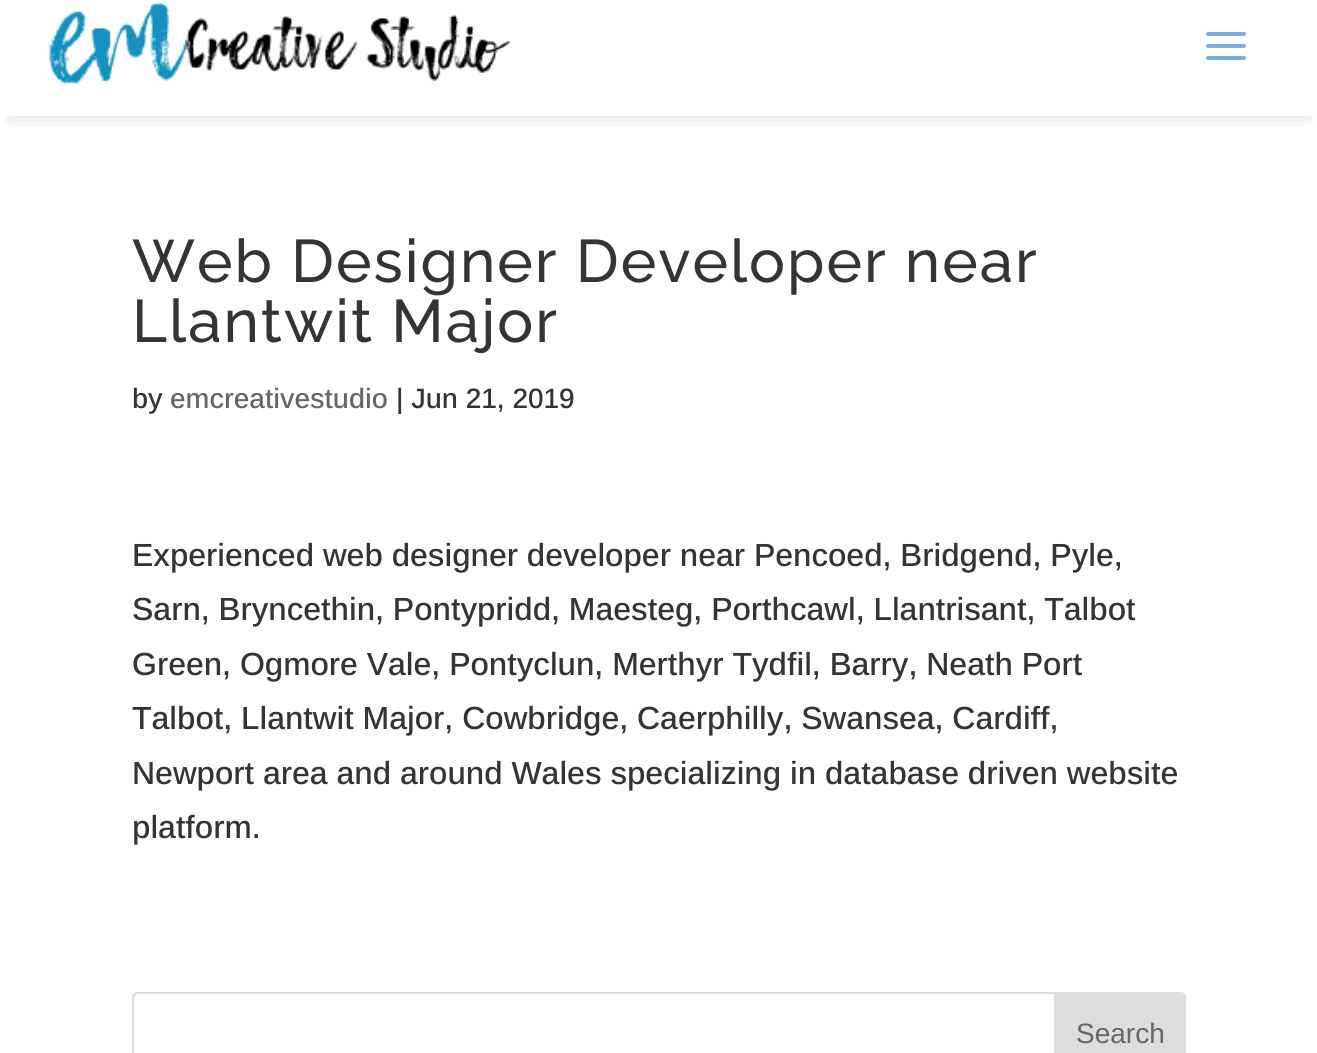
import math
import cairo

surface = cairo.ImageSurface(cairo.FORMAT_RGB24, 1317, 1053)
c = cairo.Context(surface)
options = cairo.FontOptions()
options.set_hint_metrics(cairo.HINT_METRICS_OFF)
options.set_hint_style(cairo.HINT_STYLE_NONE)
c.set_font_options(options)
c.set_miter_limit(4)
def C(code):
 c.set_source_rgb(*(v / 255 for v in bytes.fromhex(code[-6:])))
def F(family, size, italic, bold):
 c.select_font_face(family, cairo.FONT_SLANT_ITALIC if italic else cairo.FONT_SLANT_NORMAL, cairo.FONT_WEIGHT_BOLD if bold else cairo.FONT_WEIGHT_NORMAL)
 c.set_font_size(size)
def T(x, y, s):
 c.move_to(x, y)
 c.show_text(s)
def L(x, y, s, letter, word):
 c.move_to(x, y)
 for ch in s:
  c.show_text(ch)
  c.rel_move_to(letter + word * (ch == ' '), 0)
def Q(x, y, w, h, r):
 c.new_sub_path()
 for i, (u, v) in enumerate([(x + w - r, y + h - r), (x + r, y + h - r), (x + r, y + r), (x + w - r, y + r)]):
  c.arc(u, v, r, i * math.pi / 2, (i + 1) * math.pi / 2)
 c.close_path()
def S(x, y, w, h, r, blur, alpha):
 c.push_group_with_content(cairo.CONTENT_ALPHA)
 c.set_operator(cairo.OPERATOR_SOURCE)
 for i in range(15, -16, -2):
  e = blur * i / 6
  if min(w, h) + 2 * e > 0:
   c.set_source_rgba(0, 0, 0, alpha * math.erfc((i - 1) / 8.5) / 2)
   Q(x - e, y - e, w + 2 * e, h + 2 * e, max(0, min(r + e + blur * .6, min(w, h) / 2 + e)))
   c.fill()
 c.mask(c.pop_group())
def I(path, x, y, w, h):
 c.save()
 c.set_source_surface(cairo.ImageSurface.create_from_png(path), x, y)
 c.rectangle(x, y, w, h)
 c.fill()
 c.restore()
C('ffffff')
c.paint()
c.save()
c.rectangle(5,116,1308,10)
c.clip()
C('000000')
S(12,-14,1294,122,0,12,.3)
c.restore()
I('1.png',49,3,461,81)
I('2.png',1206,31,40,29)
F('Raleway Medium',60,0,0)
C('343434')
L(132,282,'Web Designer Developer near',2,0)
L(132,342,'Llantwit Major',2,0)
F('Arimo Medium',28,0,0)
T(132,408,'by')
C('666666')
T(170,408,'emcreativestudio')
C('343434')
T(396,408,'| Jun 21, 2019')
F('Arimo Medium',32,0,0)
T(132,566,'Experienced web designer developer near Pencoed, Bridgend, Pyle,')
T(132,620,'Sarn, Bryncethin, Pontypridd, Maesteg, Porthcawl, Llantrisant, Talbot')
T(132,675,'Green, Ogmore Vale, Pontyclun, Merthyr Tydfil, Barry, Neath Port')
T(132,729,'Talbot, Llantwit Major, Cowbridge, Caerphilly, Swansea, Cardiff,')
T(132,784,'Newport area and around Wales specializing in database driven website')
T(132,838,'platform.')
Q(133,993,1052,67,5)
C('dddddd')
c.stroke()
c.new_path()
c.move_to(1055,993)
c.line_to(1180,993)
c.curve_to(1183,993,1185,995,1185,998)
c.line_to(1185,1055)
c.curve_to(1185,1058,1183,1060,1180,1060)
c.line_to(1055,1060)
c.close_path()
c.fill_preserve()
c.stroke()
F('Arimo',28,0,0)
C('666666')
T(1076,1043,'Search')
surface.write_to_png('o.png')
